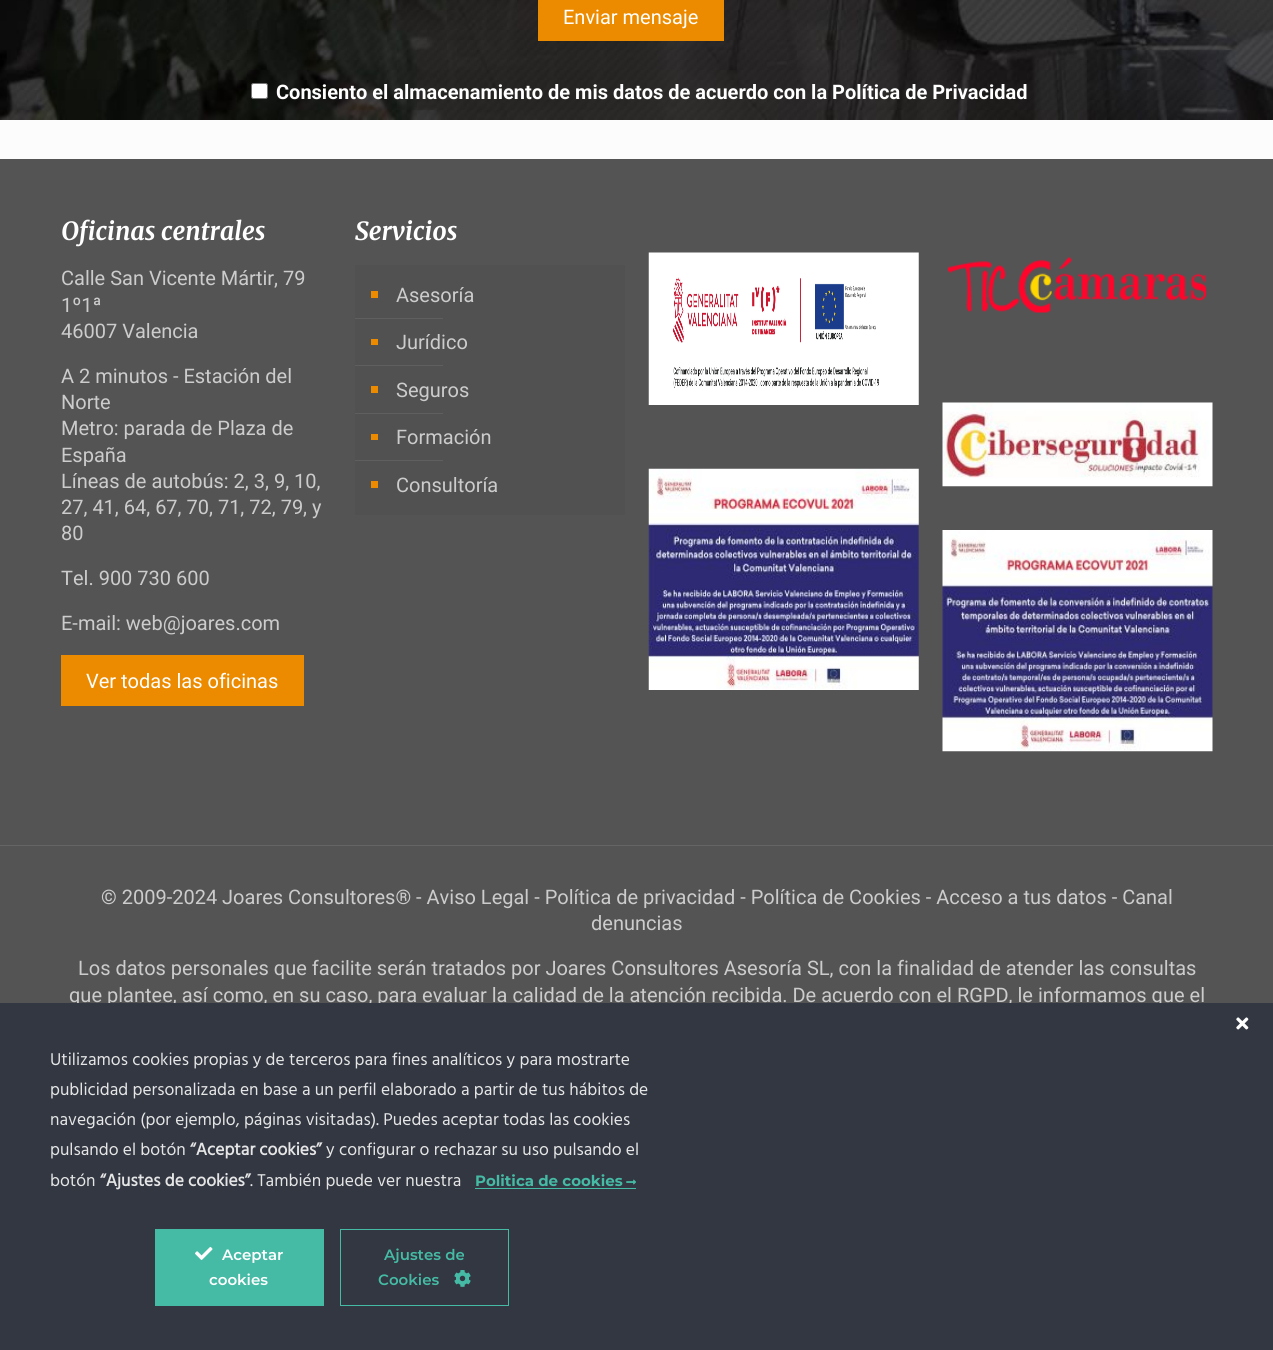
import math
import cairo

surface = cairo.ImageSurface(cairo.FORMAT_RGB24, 1273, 1350)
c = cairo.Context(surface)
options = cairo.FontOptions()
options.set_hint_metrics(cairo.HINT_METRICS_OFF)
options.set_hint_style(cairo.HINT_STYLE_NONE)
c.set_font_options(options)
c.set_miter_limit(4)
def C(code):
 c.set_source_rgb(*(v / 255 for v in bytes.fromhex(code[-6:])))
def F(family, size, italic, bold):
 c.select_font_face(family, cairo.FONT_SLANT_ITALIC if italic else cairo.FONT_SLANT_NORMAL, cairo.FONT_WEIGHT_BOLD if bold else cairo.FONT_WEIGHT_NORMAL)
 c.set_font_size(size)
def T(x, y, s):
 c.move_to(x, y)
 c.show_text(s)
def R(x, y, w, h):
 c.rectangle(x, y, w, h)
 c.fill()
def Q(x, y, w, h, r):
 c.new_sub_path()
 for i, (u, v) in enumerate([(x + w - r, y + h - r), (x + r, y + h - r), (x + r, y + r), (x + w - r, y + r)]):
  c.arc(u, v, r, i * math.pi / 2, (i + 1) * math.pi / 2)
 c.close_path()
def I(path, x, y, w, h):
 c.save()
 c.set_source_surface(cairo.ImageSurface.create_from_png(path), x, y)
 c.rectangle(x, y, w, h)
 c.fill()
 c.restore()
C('fcfcfc')
c.paint()
I('1.png',0,0,1273,120)
C('ed8b00')
R(538,0,186,41)
F('Roboto',20,0,0)
C('ffffff')
T(563,24,'Enviar mensaje')
Q(251.5,83.5,16,15,2)
c.fill_preserve()
C('767676')
c.set_line_width(1)
c.stroke()
F('Roboto',20,0,1)
C('ffffff')
T(276,99,'Consiento el almacenamiento de mis datos de acuerdo con la Política de Privacidad')
C('545454')
R(0,159,1273,844)
F('Merriweather',25,1,1)
C('ffffff')
T(61,240,'Oficinas centrales')
F('Roboto',20,0,0)
C('cccccc')
T(61,285,'Calle San Vicente Mártir, 79')
T(61,312,'1º1ª')
T(61,338,'46007 Valencia')
T(61,383,'A 2 minutos - Estación del')
T(61,409,'Norte')
T(61,435,'Metro: parada de Plaza de')
T(61,462,'España')
T(61,488,'Líneas de autobús: 2, 3, 9, 10,')
T(61,514,'27, 41, 64, 67, 70, 71, 72, 79, y')
T(61,540,'80')
T(61,585,'Tel. 900 730 600')
T(61,630,'E-mail: web@joares.com')
C('ed8b00')
R(61,655,243,51)
C('ffffff')
T(86,688,'Ver todas las oficinas')
F('Merriweather',25,1,1)
T(355,240,'Servicios')
C('515151')
R(355,265,270,250)
C('ed8b00')
R(371,291,7,7)
F('Roboto',20,0,0)
C('cccccc')
T(396,302,'Asesoría')
C('5f5f5f')
R(355,318,88,1)
C('ed8b00')
R(371,339,7,6)
C('cccccc')
T(396,349,'Jurídico')
C('5f5f5f')
R(355,365,88,1)
C('ed8b00')
R(371,386,7,7)
C('cccccc')
T(396,397,'Seguros')
C('5f5f5f')
R(355,413,88,1)
C('ed8b00')
R(371,434,7,6)
C('cccccc')
T(396,444,'Formación')
C('5f5f5f')
R(355,460,88,1)
C('ed8b00')
R(371,481,7,7)
C('cccccc')
T(396,492,'Consultoría')
I('2.png',648,252,271,153)
I('3.png',648,468,271,222)
I('4.png',947,257,260,56)
I('5.png',942,402,271,85)
I('6.png',942,530,271,222)
C('656565')
R(0,845,1273,1)
C('cccccc')
T(101,904,'© 2009-2024 Joares Consultores® - Aviso Legal - Política de privacidad - Política de Cookies - Acceso a tus datos - Canal')
T(591,930,'denuncias')
T(78,975,'Los datos personales que facilite serán tratados por Joares Consultores Asesoría SL, con la finalidad de atender las consultas')
T(69,1002,'que plantee, así como, en su caso, para evaluar la calidad de la atención recibida. De acuerdo con el RGPD, le informamos que el')
C('323742')
R(0,1003,1273,347)
F('Hind',17.5,0,0)
C('e5e5e5')
T(50,1065,'Utilizamos cookies propias y de terceros para fines analíticos y para mostrarte')
T(50,1095,'publicidad personalizada en base a un perfil elaborado a partir de tus hábitos de')
T(50,1125,'navegación (por ejemplo, páginas visitadas). Puedes aceptar todas las cookies')
T(50,1155,'pulsando el botón')
F('Hind',17.5,0,1)
T(190,1155,'“Aceptar cookies”')
F('Hind',17.5,0,0)
T(326,1155,'y configurar o rechazar su uso pulsando el')
T(50,1186,'botón')
F('Hind',17.5,0,1)
T(100,1186,'“Ajustes de cookies”')
F('Hind',17.5,0,0)
T(250,1186,'. También puede ver nuestra')
F('Montserrat',15,0,1)
C('45bba5')
T(475,1186,'Politica de cookies')
R(475,1188,161,1)
I('7.png',626,1179,10,6)
I('8.png',1236,1017,13,13)
R(155,1229,169,77)
I('9.png',195,1246,18,14)
F('Montserrat SemiBold',15,0,0)
C('ffffff')
T(222,1260,'Aceptar')
T(209,1285,'cookies')
c.rectangle(340.5,1229.5,168,76)
C('45bba5')
c.stroke()
T(384,1260,'Ajustes de')
T(378,1285,'Cookies')
I('10.png',454,1270,17,17)
surface.write_to_png('o.png')
